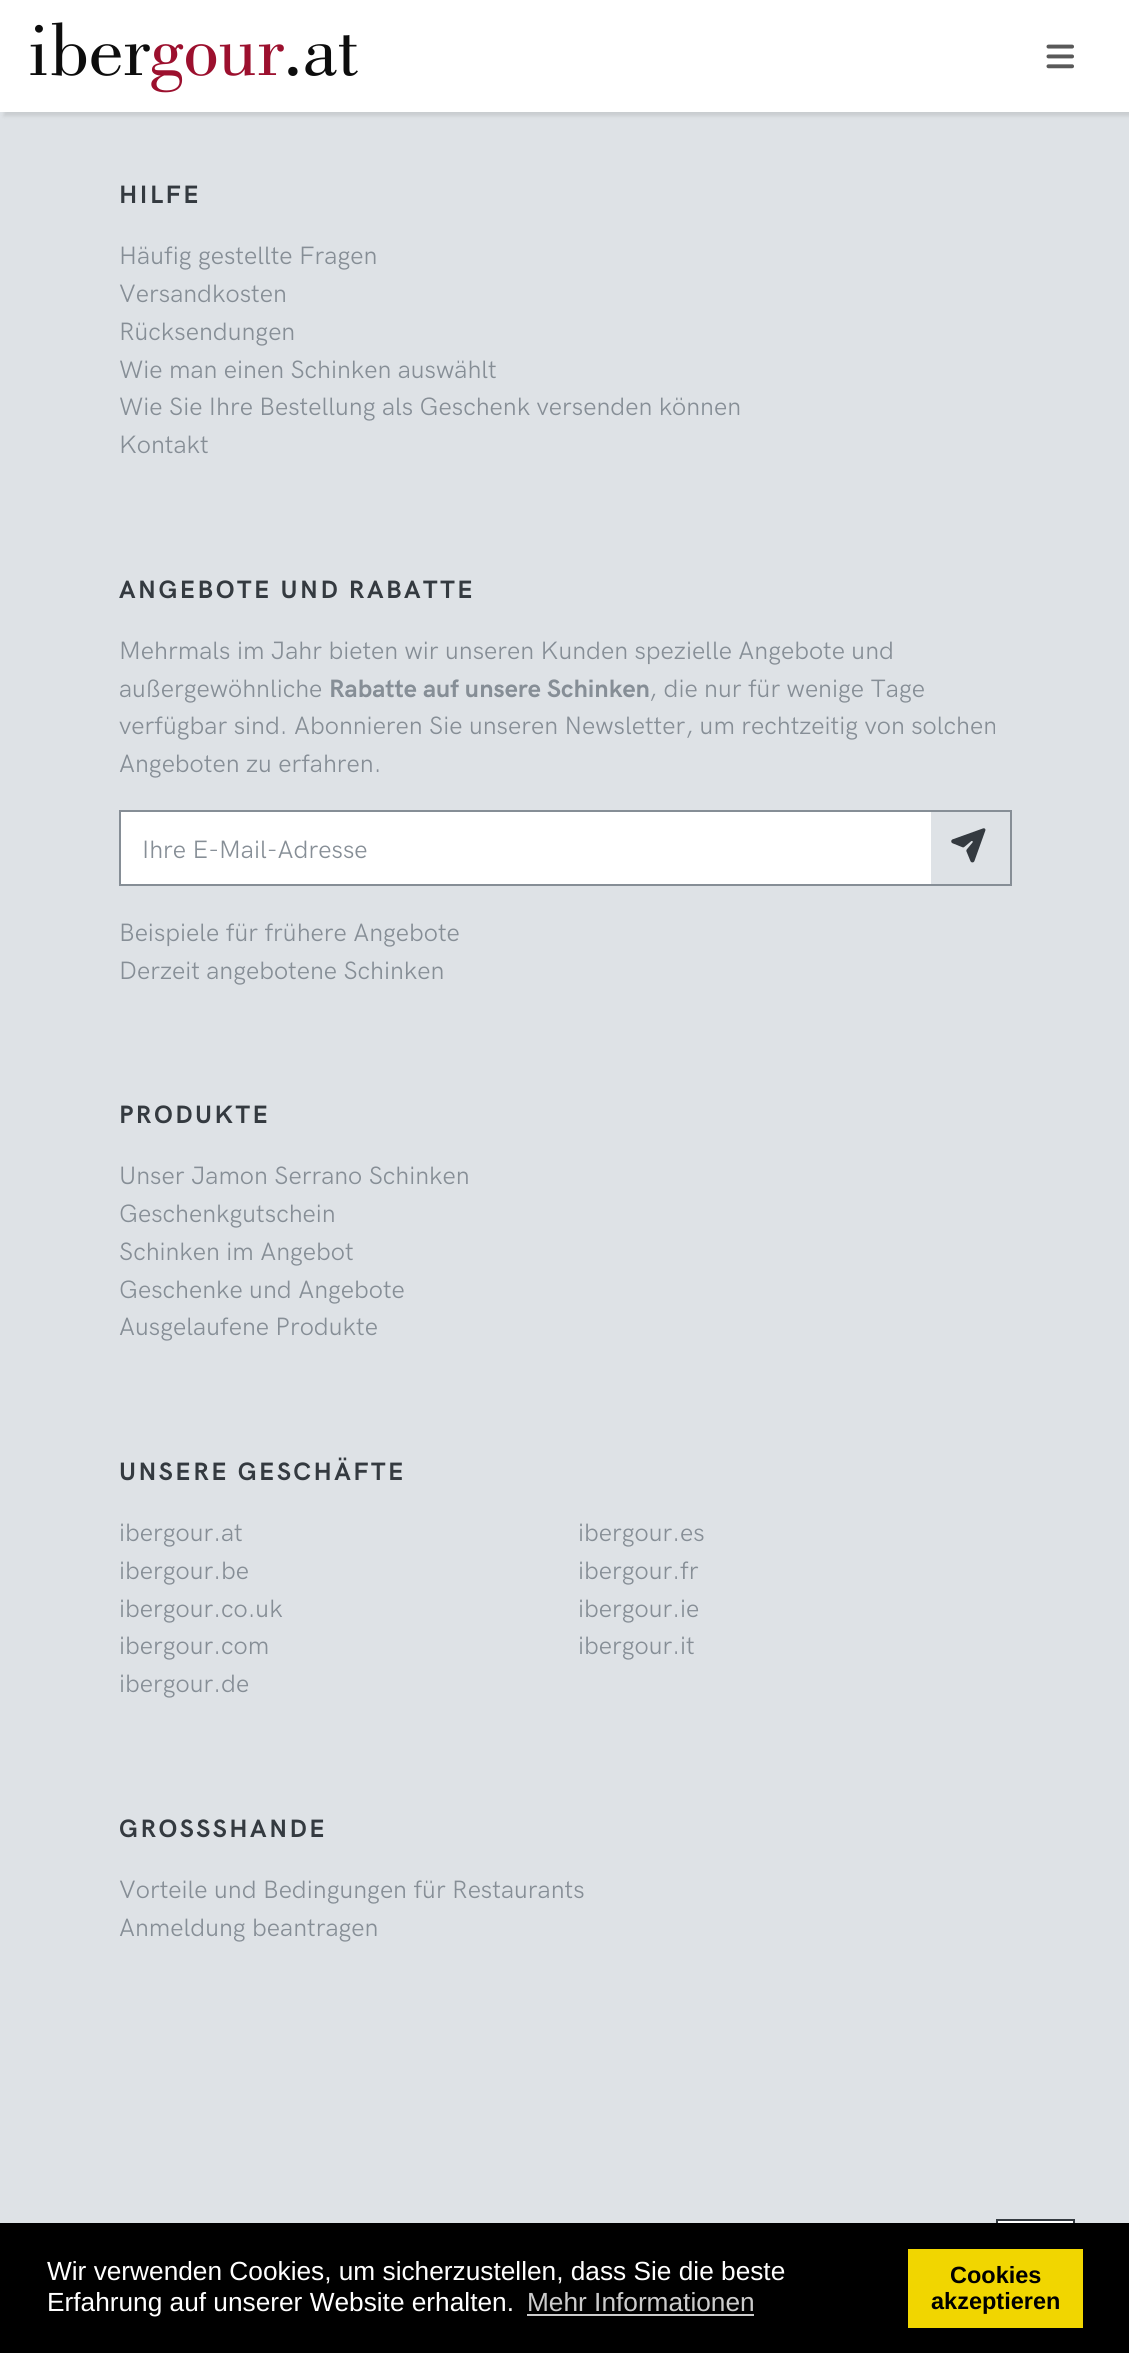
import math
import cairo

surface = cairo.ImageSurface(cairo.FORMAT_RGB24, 1129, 2353)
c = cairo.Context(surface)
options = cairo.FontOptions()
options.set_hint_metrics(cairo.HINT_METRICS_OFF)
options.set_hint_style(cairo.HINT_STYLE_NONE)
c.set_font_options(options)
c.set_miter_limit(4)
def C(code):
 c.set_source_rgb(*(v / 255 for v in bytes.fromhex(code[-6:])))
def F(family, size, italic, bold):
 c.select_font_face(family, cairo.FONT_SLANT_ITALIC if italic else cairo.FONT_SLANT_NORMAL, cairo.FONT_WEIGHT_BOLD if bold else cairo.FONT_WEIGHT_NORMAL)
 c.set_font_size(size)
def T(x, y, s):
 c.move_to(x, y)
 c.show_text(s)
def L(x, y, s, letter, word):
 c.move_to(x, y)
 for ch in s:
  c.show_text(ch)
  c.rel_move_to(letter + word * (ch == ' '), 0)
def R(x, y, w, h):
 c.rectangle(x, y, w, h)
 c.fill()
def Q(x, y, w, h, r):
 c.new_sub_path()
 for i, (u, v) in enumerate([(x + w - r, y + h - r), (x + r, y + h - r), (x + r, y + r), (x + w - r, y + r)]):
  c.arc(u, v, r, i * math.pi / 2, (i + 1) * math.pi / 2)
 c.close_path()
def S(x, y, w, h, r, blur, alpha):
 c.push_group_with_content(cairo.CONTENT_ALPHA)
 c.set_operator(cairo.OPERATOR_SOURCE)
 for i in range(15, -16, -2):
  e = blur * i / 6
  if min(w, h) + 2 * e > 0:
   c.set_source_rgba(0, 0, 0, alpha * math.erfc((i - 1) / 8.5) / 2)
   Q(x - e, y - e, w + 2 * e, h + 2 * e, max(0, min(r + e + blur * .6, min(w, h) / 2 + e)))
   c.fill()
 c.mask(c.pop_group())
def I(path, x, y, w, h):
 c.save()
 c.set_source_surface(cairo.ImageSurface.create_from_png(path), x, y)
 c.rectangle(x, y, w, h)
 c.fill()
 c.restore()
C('dee2e6')
c.paint()
C('000000')
S(4,4,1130,112,0,2,.1)
C('ffffff')
R(0,0,1129,112)
F('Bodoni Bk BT',79,0,0)
C('0d0d0d')
T(28,75,'iber')
C('9c102e')
T(149,75,'gour')
C('0d0d0d')
T(283,75,'.at')
I('1.png',1046,44,28,25)
F('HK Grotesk',25.2,0,1)
C('343a40')
L(119,203,'HILFE',2.5,0)
F('HK Grotesk',25.2,0,0)
C('868e96')
T(119,264,'Häufig gestellte Fragen')
T(119,302,'Versandkosten')
T(119,340,'Rücksendungen')
T(119,378,'Wie man einen Schinken auswählt')
T(119,415,'Wie Sie Ihre Bestellung als Geschenk versenden können')
T(119,453,'Kontakt')
F('HK Grotesk',25.2,0,1)
C('343a40')
L(119,598,'ANGEBOTE UND RABATTE',2.5,0)
F('HK Grotesk',25.2,0,0)
C('868e96')
T(119,659,'Mehrmals im Jahr bieten wir unseren Kunden spezielle Angebote und')
T(119,697,'außergewöhnliche')
F('HK Grotesk',25.2,0,1)
T(329,697,'Rabatte auf unsere Schinken')
F('HK Grotesk',25.2,0,0)
T(649,697,', die nur für wenige Tage')
T(119,734,'verfügbar sind. Abonnieren Sie unseren Newsletter, um rechtzeitig von solchen')
T(119,772,'Angeboten zu erfahren.')
C('ffffff')
R(121,812,810,72)
C('868e96')
R(119,810,893,2)
R(119,884,812,2)
R(119,810,2,76)
T(142,858,'Ihre E-Mail-Adresse')
R(1010,810,2,76)
R(929,884,83,2)
I('2.png',951,828,35,35)
T(119,941,'Beispiele für frühere Angebote')
T(119,979,'Derzeit angebotene Schinken')
F('HK Grotesk',25.2,0,1)
C('343a40')
L(119,1123,'PRODUKTE',2.5,0)
F('HK Grotesk',25.2,0,0)
C('868e96')
T(119,1184,'Unser Jamon Serrano Schinken')
T(119,1222,'Geschenkgutschein')
T(119,1260,'Schinken im Angebot')
T(119,1298,'Geschenke und Angebote')
T(119,1335,'Ausgelaufene Produkte')
F('HK Grotesk',25.2,0,1)
C('343a40')
L(119,1480,'UNSERE GESCHÄFTE',2.5,0)
F('HK Grotesk',25.2,0,0)
C('868e96')
T(119,1541,'ibergour.at')
T(578,1541,'ibergour.es')
T(119,1579,'ibergour.be')
T(578,1579,'ibergour.fr')
T(119,1617,'ibergour.co.uk')
T(578,1617,'ibergour.ie')
T(119,1654,'ibergour.com')
T(578,1654,'ibergour.it')
T(119,1692,'ibergour.de')
F('HK Grotesk',25.2,0,1)
C('343a40')
L(119,1837,'GROSSSHANDE',2.5,0)
F('HK Grotesk',25.2,0,0)
C('868e96')
T(119,1898,'Vorteile und Bedingungen für Restaurants')
T(119,1936,'Anmeldung beantragen')
C('ffffff')
R(998,2221,75,2)
c.rectangle(997,2220,77,77)
C('343a40')
c.stroke()
C('000000')
R(0,2223,1129,130)
F('Liberation Sans',26.25,0,0)
C('ffffff')
T(47,2280,'Wir verwenden Cookies, um sicherzustellen, dass Sie die beste')
T(47,2311,'Erfahrung auf unserer Website erhalten.')
C('cccccc')
T(527,2311,'Mehr Informationen')
R(527,2314,227,2)
C('f1d600')
R(908,2249,175,79)
F('Liberation Sans',23.5,0,1)
C('000000')
T(950,2283,'Cookies')
T(931,2309,'akzeptieren')
surface.write_to_png('o.png')
